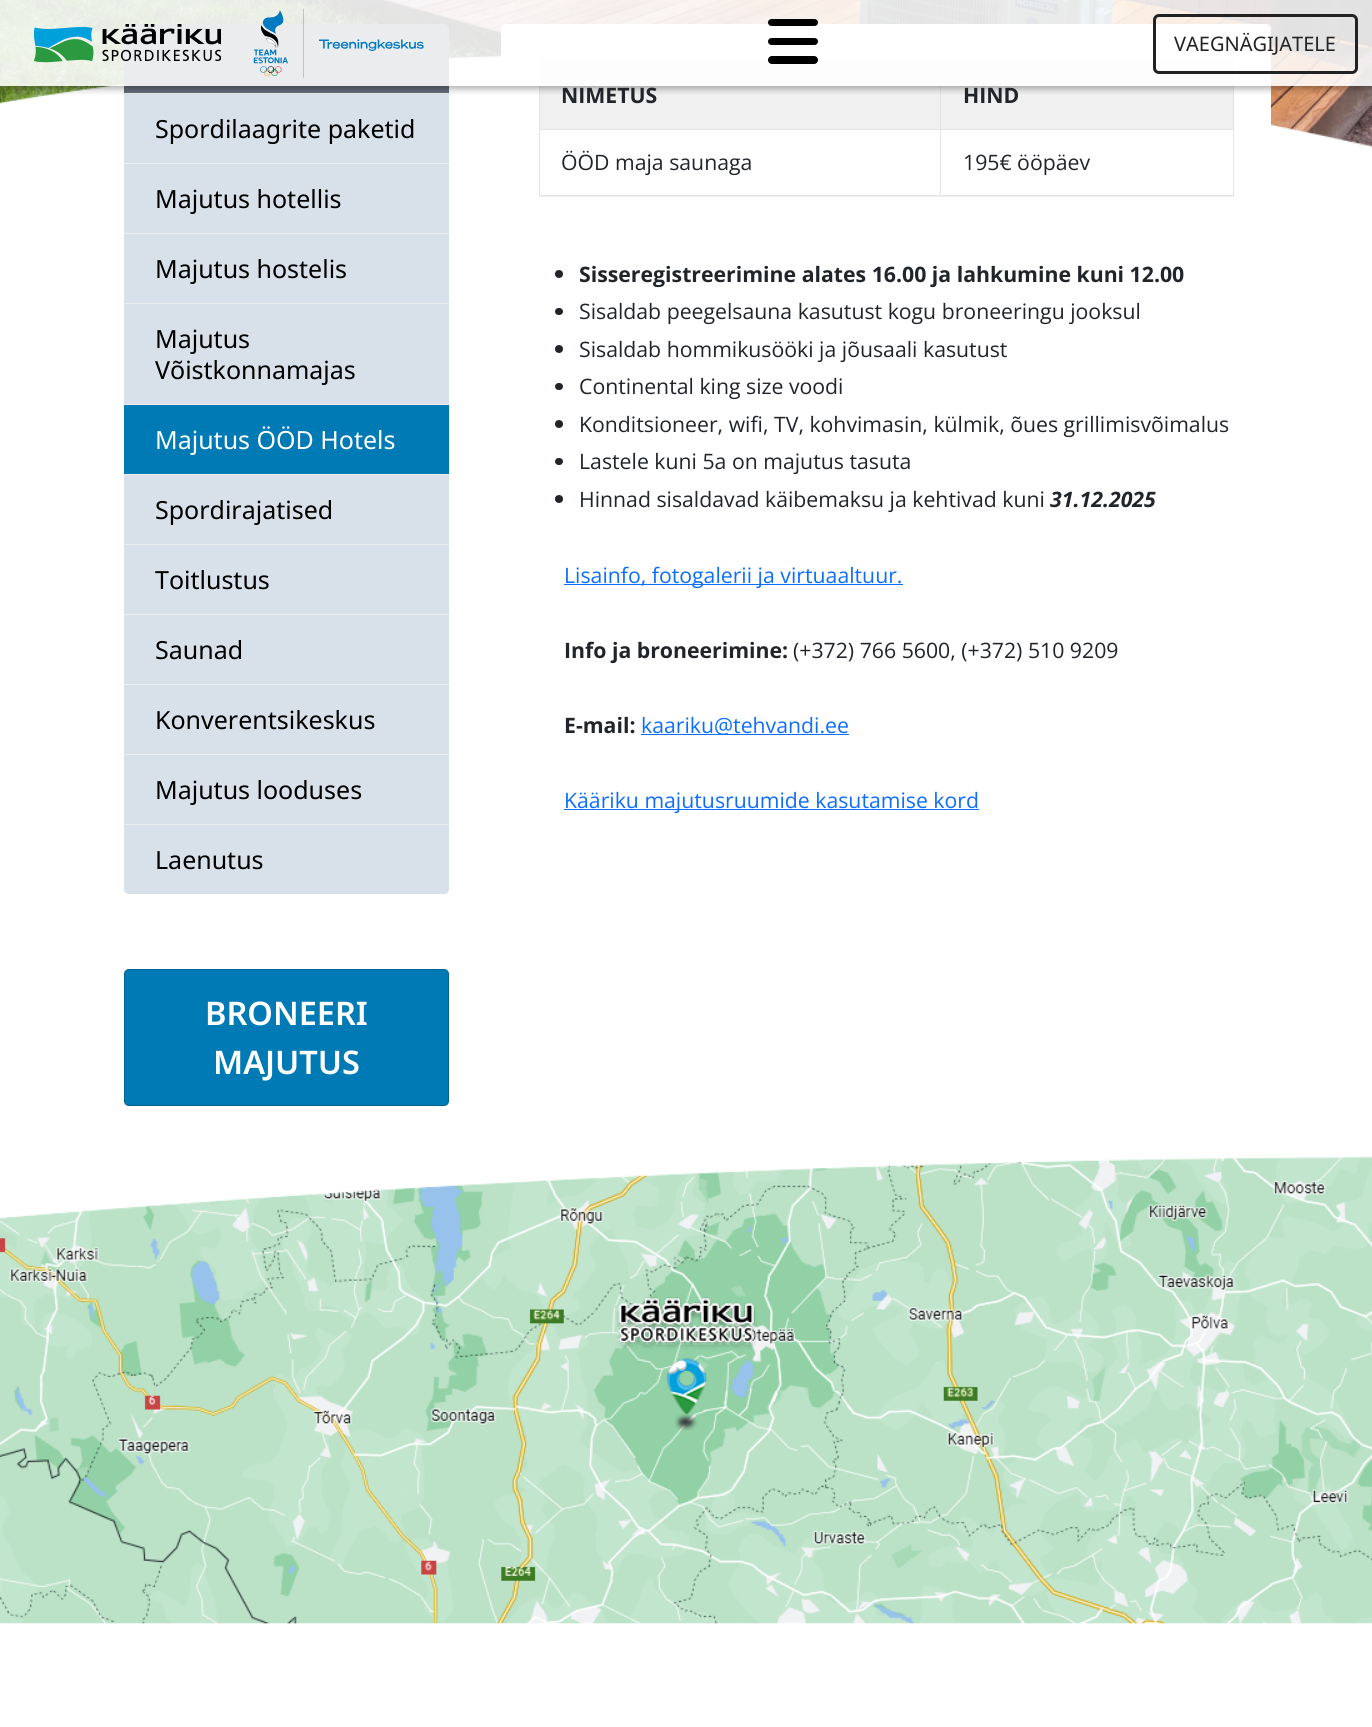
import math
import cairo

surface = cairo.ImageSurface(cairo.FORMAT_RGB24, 1372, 1727)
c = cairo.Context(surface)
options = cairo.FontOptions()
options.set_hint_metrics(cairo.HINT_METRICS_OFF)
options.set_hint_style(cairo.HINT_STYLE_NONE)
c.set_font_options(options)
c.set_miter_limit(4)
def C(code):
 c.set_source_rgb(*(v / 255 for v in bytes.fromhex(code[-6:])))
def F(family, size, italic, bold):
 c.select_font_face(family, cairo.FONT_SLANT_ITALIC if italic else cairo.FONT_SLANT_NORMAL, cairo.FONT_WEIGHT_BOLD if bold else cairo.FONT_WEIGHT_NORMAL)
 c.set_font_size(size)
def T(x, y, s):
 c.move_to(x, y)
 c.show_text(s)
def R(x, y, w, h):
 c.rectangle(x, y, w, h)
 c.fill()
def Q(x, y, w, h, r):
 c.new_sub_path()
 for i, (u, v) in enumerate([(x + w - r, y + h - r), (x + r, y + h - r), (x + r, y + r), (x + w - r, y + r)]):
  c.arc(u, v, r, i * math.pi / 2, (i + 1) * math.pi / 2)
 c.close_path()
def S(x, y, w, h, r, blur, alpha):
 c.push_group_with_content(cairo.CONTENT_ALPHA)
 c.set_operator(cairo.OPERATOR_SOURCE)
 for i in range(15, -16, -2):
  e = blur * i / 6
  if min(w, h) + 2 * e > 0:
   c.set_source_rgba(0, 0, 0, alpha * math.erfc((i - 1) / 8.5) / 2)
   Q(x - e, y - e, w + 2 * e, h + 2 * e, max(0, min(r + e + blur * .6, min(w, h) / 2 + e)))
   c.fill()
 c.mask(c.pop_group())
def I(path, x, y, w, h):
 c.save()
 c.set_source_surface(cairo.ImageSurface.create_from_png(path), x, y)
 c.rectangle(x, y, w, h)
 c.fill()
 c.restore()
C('ffffff')
c.paint()
I('1.png',0,0,1372,148)
I('4.png',0,55,1372,274)
C('636b78')
c.new_path()
c.move_to(129,24)
c.line_to(444,24)
c.curve_to(447,24,449,26,449,29)
c.line_to(449,93)
c.line_to(124,93)
c.line_to(124,29)
c.curve_to(124,26,126,24,129,24)
c.close_path()
c.fill()
C('efefef')
R(124,93,325,1)
C('d8e1e9')
R(124,94,325,69)
C('ffffff')
Q(501,24,770,851,5)
c.fill()
C('f0f0f0')
R(540,63,693,66)
C('e4e4e4')
R(940,61,294,1)
R(940,129,294,1)
R(1233,129,1,67)
R(940,195,294,1)
R(940,129,1,67)
R(539,129,402,1)
R(940,61,1,69)
R(539,61,402,1)
R(539,195,402,1)
R(539,129,1,67)
R(539,61,1,69)
R(1233,61,1,69)
c.save()
c.rectangle(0,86,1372,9)
c.clip()
C('000000')
S(0,1,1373,87,0,4,.39)
c.restore()
c.set_source_rgba(1,1,1,0.87)
R(0,0,1372,86)
I('2.png',34,24,187,39)
I('3.png',253,8,171,70)
C('000000')
Q(768,19,50,7,3.5)
c.fill()
Q(768,38,50,7,3.5)
c.fill()
Q(768,56,50,8,4)
c.fill()
Q(1154.5,15.5,202,57,4.5)
C('222222')
c.set_line_width(3)
c.stroke()
F('Noto Sans',20,0,0)
T(1174,51,'VAEGNÄGIJATELE')
C('efefef')
R(124,163,325,1)
F('Noto Sans',25,0,0)
C('000000')
T(155,138,'Spordilaagrite paketid')
C('efefef')
R(124,233,325,1)
C('d8e1e9')
R(124,164,325,69)
C('000000')
T(155,208,'Majutus hotellis')
C('efefef')
R(124,303,325,1)
C('d8e1e9')
R(124,234,325,69)
C('000000')
T(155,278,'Majutus hostelis')
C('efefef')
R(124,404,325,1)
C('d8e1e9')
R(124,304,325,100)
C('000000')
T(155,348,'Majutus')
T(155,379,'Võistkonnamajas')
C('efefef')
R(124,474,325,1)
C('007ab5')
R(124,405,325,69)
C('ffffff')
T(155,449,'Majutus ÖÖD Hotels')
C('efefef')
R(124,544,325,1)
C('d8e1e9')
R(124,475,325,69)
C('000000')
T(155,519,'Spordirajatised')
C('efefef')
R(124,614,325,1)
C('d8e1e9')
R(124,545,325,69)
C('000000')
T(155,589,'Toitlustus')
C('efefef')
R(124,684,325,1)
C('d8e1e9')
R(124,615,325,69)
C('000000')
T(155,659,'Saunad')
C('efefef')
R(124,754,325,1)
C('d8e1e9')
R(124,685,325,69)
C('000000')
T(155,729,'Konverentsikeskus')
C('efefef')
R(124,824,325,1)
C('d8e1e9')
R(124,755,325,69)
C('000000')
T(155,799,'Majutus looduses')
C('d8e1e9')
c.new_path()
c.move_to(124,825)
c.line_to(449,825)
c.line_to(449,889)
c.curve_to(449,892,447,894,444,894)
c.line_to(129,894)
c.curve_to(126,894,124,892,124,889)
c.close_path()
c.fill()
C('000000')
T(155,869,'Laenutus')
C('007ab5')
Q(124.5,969.5,324,136,4.5)
c.fill_preserve()
C('006191')
c.set_line_width(1)
c.stroke()
F('Noto Sans SemiBold',32.5,0,0)
C('ffffff')
T(205,1025,'BRONEERI')
T(213,1074,'MAJUTUS')
C('f0f0f0')
R(539,196,695,1)
F('Open Sans',21.25,0,1)
C('212529')
T(561,103,'NIMETUS')
T(963,103,'HIND')
F('Open Sans',21.25,0,0)
T(561,170,'ÖÖD maja saunaga')
T(963,170,'195€ ööpäev')
c.new_path()
c.arc(559,274,4,0,2 * math.pi)
c.fill()
F('Open Sans',21.25,0,1)
T(579,282,'Sisseregistreerimine alates 16.00 ja lahkumine kuni 12.00')
Q(555,308,8,7,3.5)
c.fill()
F('Open Sans',21.25,0,0)
T(579,319,'Sisaldab peegelsauna kasutust kogu broneeringu jooksul')
c.new_path()
c.arc(559,349,4,0,2 * math.pi)
c.fill()
T(579,357,'Sisaldab hommikusööki ja jõusaali kasutust')
Q(555,383,8,7,3.5)
c.fill()
T(579,394,'Continental king size voodi')
c.new_path()
c.arc(559,424,4,0,2 * math.pi)
c.fill()
T(579,432,'Konditsioneer, wifi, TV, kohvimasin, külmik, õues grillimisvõimalus')
Q(555,458,8,7,3.5)
c.fill()
T(579,469,'Lastele kuni 5a on majutus tasuta')
c.new_path()
c.arc(559,499,4,0,2 * math.pi)
c.fill()
T(579,507,'Hinnad sisaldavad käibemaksu ja kehtivad kuni')
F('Open Sans',21.25,1,1)
T(1050,507,'31.12.2025')
C('0d6efd')
R(564,584,339,1)
F('Open Sans',21.25,0,0)
T(564,583,'Lisainfo, fotogalerii ja virtuaaltuur.')
F('Open Sans',21.25,0,1)
C('212529')
T(564,658,'Info ja broneerimine:')
F('Open Sans',21.25,0,0)
T(793,658,'(+372) 766 5600, (+372) 510 9209')
F('Open Sans',21.25,0,1)
T(564,733,'E-mail:')
C('0d6efd')
R(641,734,208,1)
F('Open Sans',21.25,0,0)
T(641,733,'kaariku@tehvandi.ee')
R(564,809,415,1)
T(564,808,'Kääriku majutusruumide kasutamise kord')
I('5.png',0,1157,1372,467)
I('7.png',674,1414,24,17)
I('6.png',616,1297,141,118)
surface.write_to_png('o.png')
